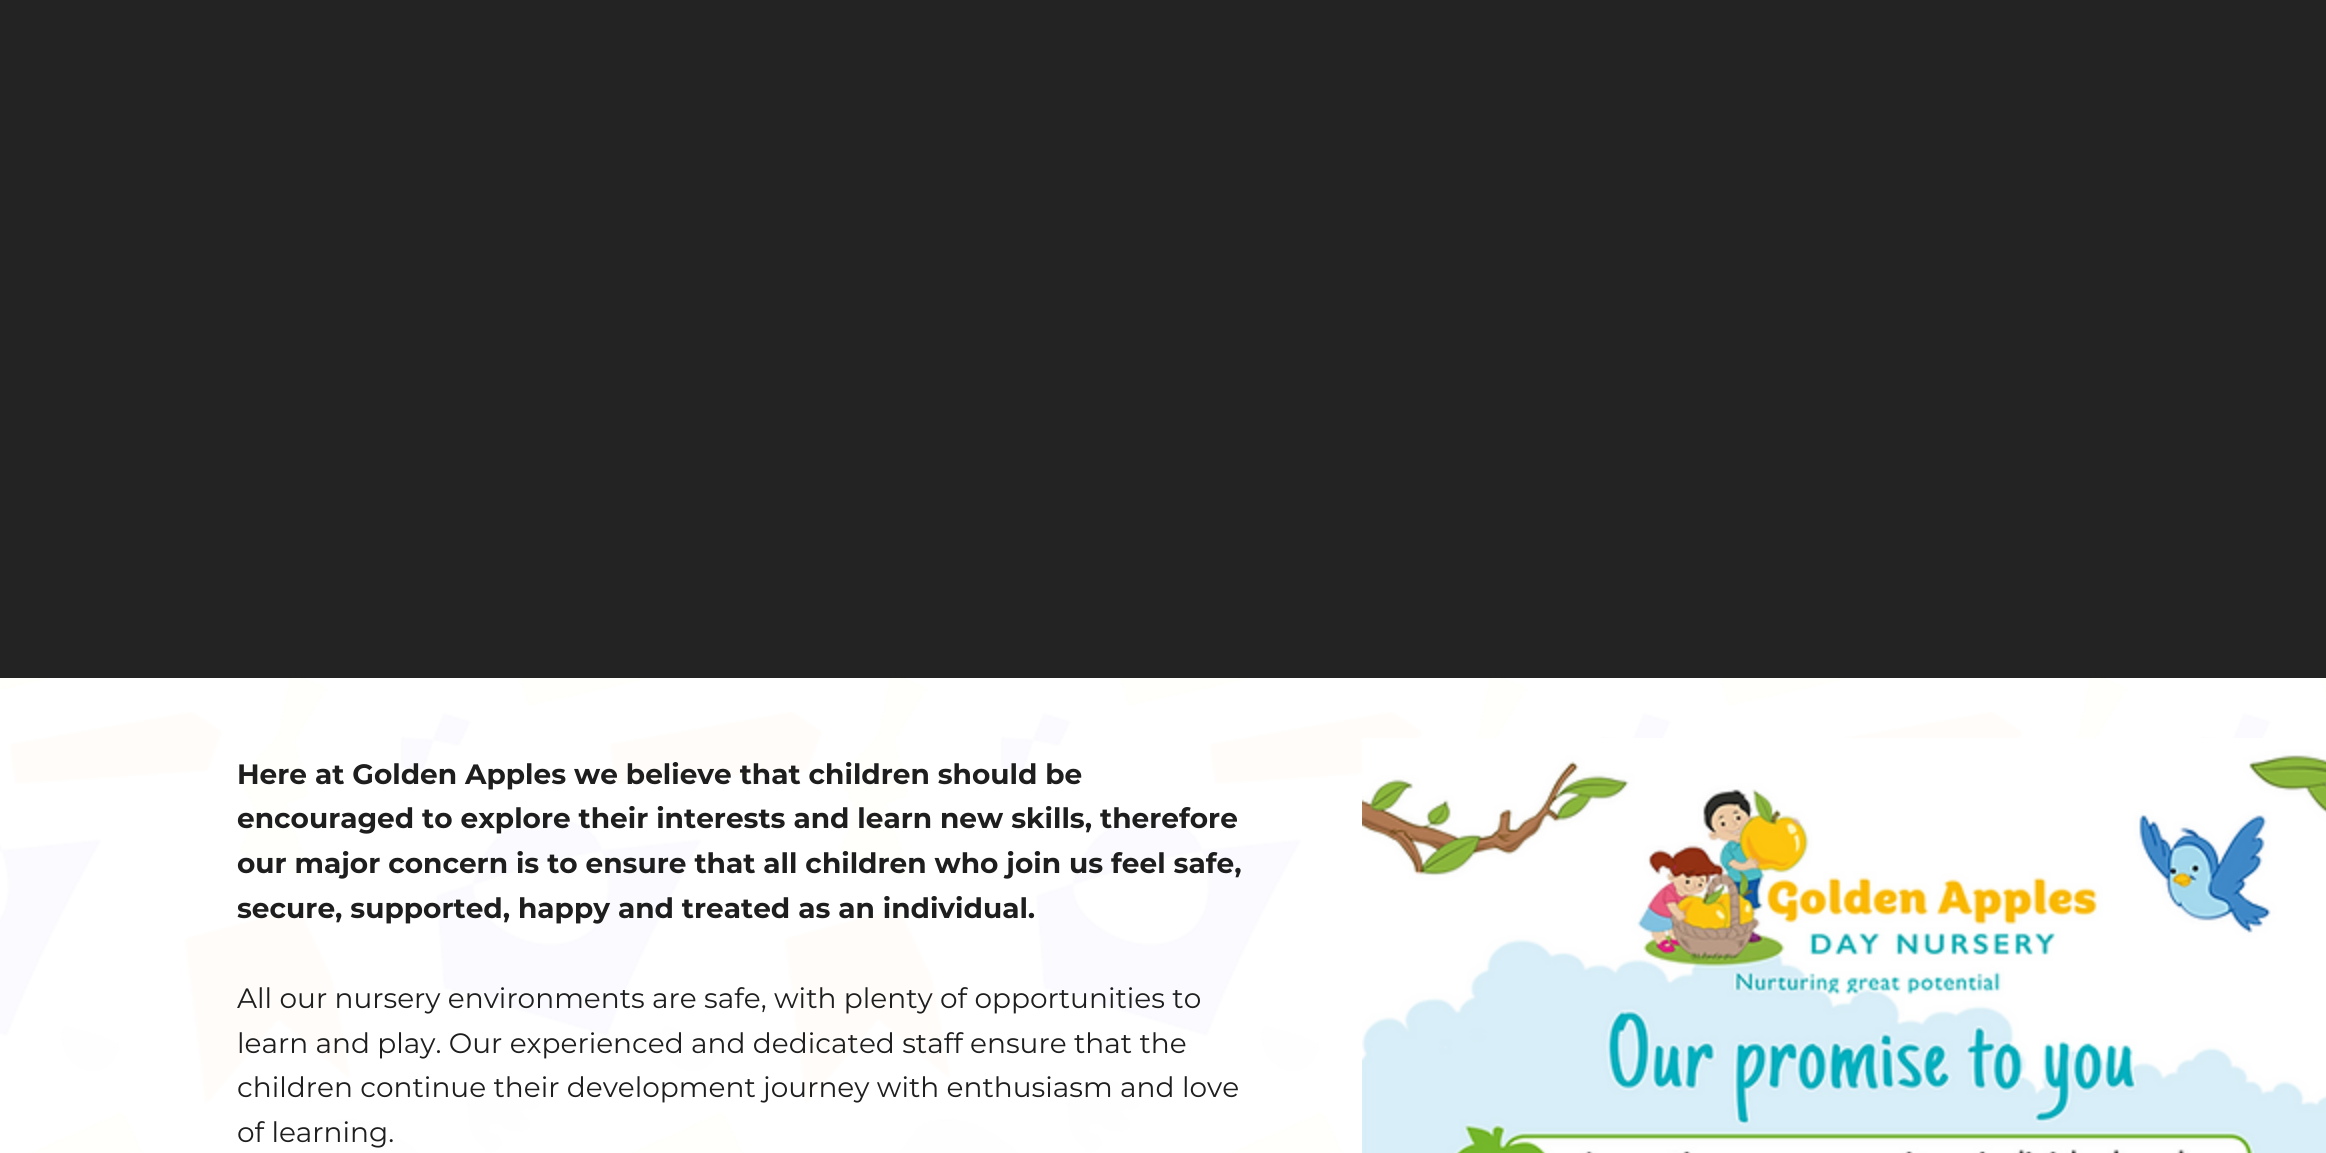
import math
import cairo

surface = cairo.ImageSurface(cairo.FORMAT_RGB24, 2326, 1153)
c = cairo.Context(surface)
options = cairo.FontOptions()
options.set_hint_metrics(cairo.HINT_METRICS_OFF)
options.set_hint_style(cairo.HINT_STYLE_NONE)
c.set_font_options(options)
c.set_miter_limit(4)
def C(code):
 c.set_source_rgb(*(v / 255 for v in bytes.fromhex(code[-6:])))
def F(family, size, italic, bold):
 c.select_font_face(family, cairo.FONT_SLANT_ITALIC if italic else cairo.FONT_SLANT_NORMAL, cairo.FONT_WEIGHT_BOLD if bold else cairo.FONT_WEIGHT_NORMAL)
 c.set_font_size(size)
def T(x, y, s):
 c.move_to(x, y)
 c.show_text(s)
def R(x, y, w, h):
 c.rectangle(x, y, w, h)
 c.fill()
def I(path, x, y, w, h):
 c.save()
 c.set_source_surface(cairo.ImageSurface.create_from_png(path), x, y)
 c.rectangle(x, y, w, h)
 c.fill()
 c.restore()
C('ffffff')
c.paint()
I('1.png',0,678,2326,475)
C('242323')
R(0,0,2326,678)
F('Montserrat',28,0,1)
C('1e1e1e')
T(237,784,'Here at Golden Apples we believe that children should be')
T(237,828,'encouraged to explore their interests and learn new skills, therefore')
T(237,873,'our major concern is to ensure that all children who join us feel safe,')
T(237,918,'secure, supported, happy and treated as an individual.')
F('Montserrat',28,0,0)
T(237,1008,'All our nursery environments are safe, with plenty of opportunities to')
T(237,1053,'learn and play. Our experienced and dedicated staff ensure that the')
T(237,1097,'children continue their development journey with enthusiasm and love')
T(237,1142,'of learning.')
I('2.png',1362,738,964,415)
surface.write_to_png('o.png')
